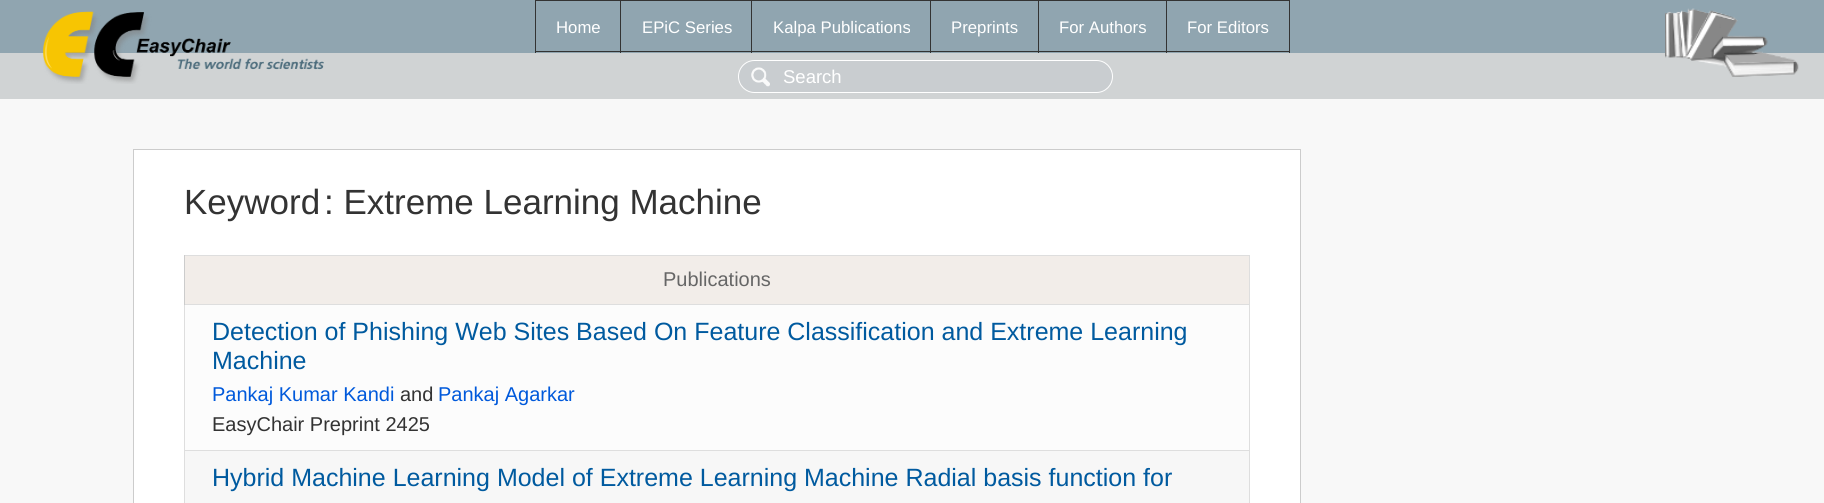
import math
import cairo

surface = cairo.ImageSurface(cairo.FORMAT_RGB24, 1824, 503)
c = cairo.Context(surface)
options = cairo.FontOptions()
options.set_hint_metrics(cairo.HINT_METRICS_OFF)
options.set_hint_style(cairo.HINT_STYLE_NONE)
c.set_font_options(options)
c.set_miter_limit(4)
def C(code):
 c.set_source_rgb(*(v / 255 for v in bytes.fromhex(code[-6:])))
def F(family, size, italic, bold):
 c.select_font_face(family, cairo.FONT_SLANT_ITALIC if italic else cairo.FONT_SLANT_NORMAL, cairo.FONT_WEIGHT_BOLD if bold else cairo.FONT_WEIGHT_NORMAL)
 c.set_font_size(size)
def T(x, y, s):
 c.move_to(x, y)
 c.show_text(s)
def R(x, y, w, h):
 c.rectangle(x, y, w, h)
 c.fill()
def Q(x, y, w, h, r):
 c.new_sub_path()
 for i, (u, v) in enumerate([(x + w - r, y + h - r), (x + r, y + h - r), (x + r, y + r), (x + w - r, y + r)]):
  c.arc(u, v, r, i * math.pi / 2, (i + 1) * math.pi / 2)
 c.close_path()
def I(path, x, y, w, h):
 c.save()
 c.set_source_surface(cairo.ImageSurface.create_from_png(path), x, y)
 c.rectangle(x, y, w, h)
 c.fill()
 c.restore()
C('90a5b0')
c.paint()
C('d0d3d4')
R(0,53,1824,46)
I('1.png',43,11,281,73)
C('333333')
R(1166,0,124,1)
R(1289,0,1,53)
R(1166,51,124,1)
R(1166,0,1,53)
R(1038,0,130,1)
R(1038,51,130,1)
R(1038,0,1,53)
R(930,0,109,1)
R(930,51,109,1)
R(930,0,1,53)
R(751,0,180,1)
R(751,51,180,1)
R(751,0,1,53)
R(620,0,133,1)
R(620,51,133,1)
R(620,0,1,53)
R(535,0,86,1)
R(535,51,86,1)
R(535,0,1,53)
F('Liberation Sans',16.75,0,0)
C('ffffff')
T(556,33,'Home')
T(642,33,'EPiC Series')
T(773,33,'Kalpa Publications')
T(951,33,'Preprints')
T(1059,33,'For Authors')
T(1187,33,'For Editors')
I('2.png',1665,8,134,69)
C('c9cdd0')
Q(738,60,375,33,16.5)
c.fill()
I('3.png',751,67,19,20)
Q(738.5,60.5,374,32,16)
C('ffffff')
c.set_line_width(1)
c.stroke()
F('Liberation Sans',18.5,0,0)
T(783,83,'Search')
C('f8f8f8')
R(0,99,1824,404)
C('ffffff')
c.rectangle(133.5,149.5,1167,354)
c.fill_preserve()
C('cccccc')
c.stroke()
F('Liberation Sans',35,0,0)
C('333333')
T(184,214,'Keyword')
T(324,214,': Extreme Learning Machine')
C('dedede')
R(184,255,1066,1)
R(1249,255,1,248)
R(184,305,1,198)
C('f2ede9')
R(185,256,1064,48)
C('dedede')
R(184,304,1066,1)
C('cccccc')
R(184,255,1,50)
F('Liberation Sans',20,0,0)
C('666666')
T(663,286,'Publications')
C('fcfcfc')
R(185,305,1064,145)
C('dedede')
R(184,450,1066,1)
F('Liberation Sans',25,0,0)
C('005a9f')
T(212,340,'Detection of Phishing Web Sites Based On Feature Classification and Extreme Learning')
T(212,369,'Machine')
F('Liberation Sans',20,0,0)
C('0059db')
T(212,401,'Pankaj Kumar Kandi')
C('333333')
T(400,401,'and')
C('0059db')
T(438,401,'Pankaj Agarkar')
C('333333')
T(212,431,'EasyChair Preprint 2425')
C('f7f7f7')
R(185,451,1064,52)
F('Liberation Sans',25,0,0)
C('005a9f')
T(212,486,'Hybrid Machine Learning Model of Extreme Learning Machine Radial basis function for')
surface.write_to_png('o.png')
